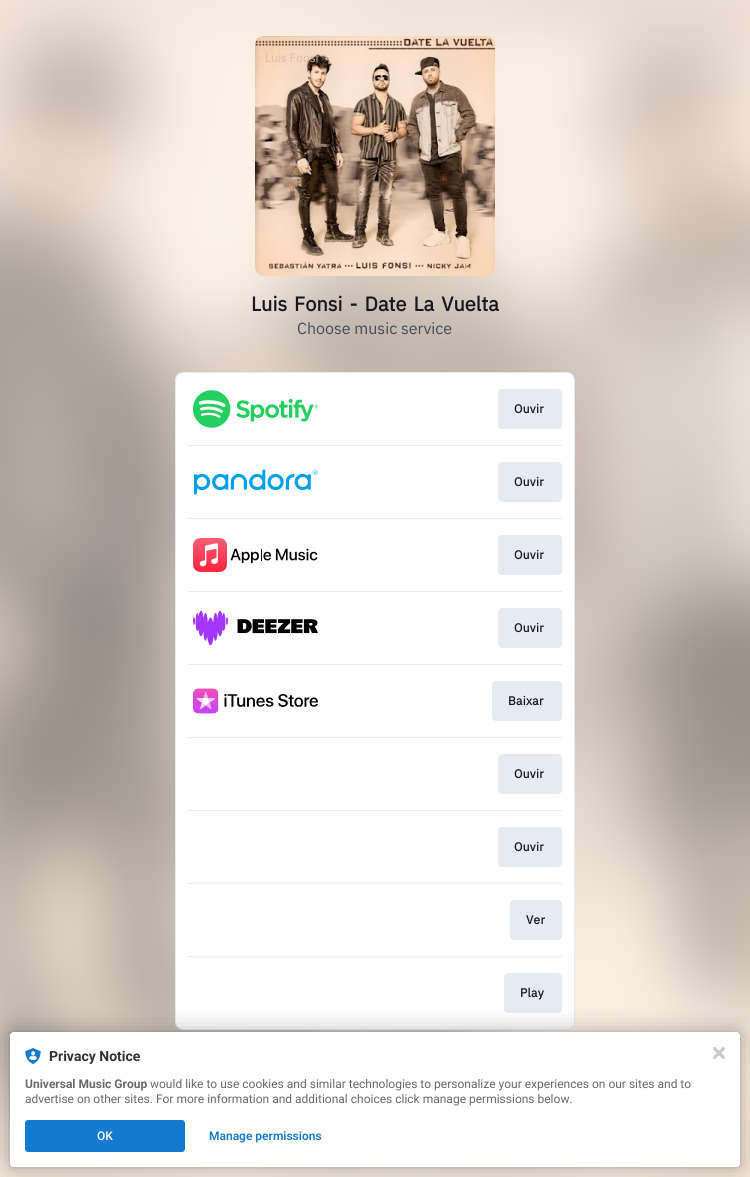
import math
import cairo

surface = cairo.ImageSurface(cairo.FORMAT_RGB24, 750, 1177)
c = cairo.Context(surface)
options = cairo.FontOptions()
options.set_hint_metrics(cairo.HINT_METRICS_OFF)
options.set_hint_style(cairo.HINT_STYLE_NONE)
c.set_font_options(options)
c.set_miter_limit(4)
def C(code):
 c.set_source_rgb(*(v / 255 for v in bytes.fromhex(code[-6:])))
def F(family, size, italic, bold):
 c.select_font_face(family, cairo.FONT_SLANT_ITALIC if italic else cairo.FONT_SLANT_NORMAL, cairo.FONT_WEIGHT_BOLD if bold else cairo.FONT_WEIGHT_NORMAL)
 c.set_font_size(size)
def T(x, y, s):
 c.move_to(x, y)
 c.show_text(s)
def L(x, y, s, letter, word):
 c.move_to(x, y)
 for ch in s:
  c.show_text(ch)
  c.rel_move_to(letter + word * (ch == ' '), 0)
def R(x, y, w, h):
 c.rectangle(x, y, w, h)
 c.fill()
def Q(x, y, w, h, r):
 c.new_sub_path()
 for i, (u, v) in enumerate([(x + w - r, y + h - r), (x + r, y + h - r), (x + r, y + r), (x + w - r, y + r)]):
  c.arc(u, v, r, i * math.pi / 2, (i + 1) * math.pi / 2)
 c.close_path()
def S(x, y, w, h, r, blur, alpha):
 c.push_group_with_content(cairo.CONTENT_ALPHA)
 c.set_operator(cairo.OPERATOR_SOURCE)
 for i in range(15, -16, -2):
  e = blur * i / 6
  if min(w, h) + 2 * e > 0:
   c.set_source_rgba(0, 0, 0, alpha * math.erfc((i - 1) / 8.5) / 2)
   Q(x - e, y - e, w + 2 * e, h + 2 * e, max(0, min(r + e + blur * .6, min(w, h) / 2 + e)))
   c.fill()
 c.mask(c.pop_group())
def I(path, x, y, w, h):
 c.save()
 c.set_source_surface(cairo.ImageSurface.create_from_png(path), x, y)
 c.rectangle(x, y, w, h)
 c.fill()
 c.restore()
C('ffffff')
c.paint()
I('1.png',0,0,750,1177)
I('2.png',255,36,240,240)
F('IBM Plex Sans',12,0,0)
C('dbbea7')
T(265,62,'Luis Fonsi')
F('IBM Plex Sans',20,0,1)
C('181721')
L(251,311,'Luis Fonsi - Date La Vuelta',0,2.25)
F('IBM Plex Sans',16,0,0)
C('454b5f')
T(297,334,'Choose music service')
Q(175.5,372.5,399,657,7.5)
C('e6eaf2')
c.set_line_width(1)
c.stroke()
C('ffffff')
Q(176,373,398,656,7)
c.fill()
I('3.png',193,390,125,38)
C('e6eaf2')
Q(498,389,64,40,4)
c.fill()
F('IBM Plex Sans',12,0,1)
C('181721')
L(514,413,'Ouvir',.25,0)
C('e6eaf2')
R(188,445,374,1)
I('4.png',194,469,124,26)
Q(498,462,64,40,4)
c.fill()
C('181721')
L(514,486,'Ouvir',.25,0)
C('e6eaf2')
R(188,518,374,1)
I('5.png',193,538,125,34)
Q(498,535,64,40,4)
c.fill()
C('181721')
L(514,559,'Ouvir',.25,0)
C('e6eaf2')
R(188,591,374,1)
I('6.png',193,610,125,36)
Q(498,608,64,40,4)
c.fill()
C('181721')
L(514,632,'Ouvir',.25,0)
C('e6eaf2')
R(188,664,374,1)
I('7.png',193,688,125,26)
Q(492,681,70,40,4)
c.fill()
C('181721')
L(508,705,'Baixar',.25,0)
C('e6eaf2')
R(188,737,374,1)
Q(498,754,64,40,4)
c.fill()
C('181721')
L(514,778,'Ouvir',.25,0)
C('e6eaf2')
R(188,810,374,1)
Q(498,827,64,40,4)
c.fill()
C('181721')
L(514,851,'Ouvir',.25,0)
C('e6eaf2')
R(188,883,374,1)
Q(510,900,52,40,4)
c.fill()
C('181721')
L(526,924,'Ver',.25,0)
C('e6eaf2')
R(188,956,374,1)
Q(504,973,58,40,4)
c.fill()
C('181721')
L(520,997,'Play',.25,0)
C('000000')
S(10,1032,730,135,4,2,.12)
S(10,1032,730,135,4,12,.3)
C('ffffff')
Q(10,1032,730,135,4)
c.fill()
I('8.png',25,1048,16,16)
F('Roboto',14,0,1)
C('323232')
T(49,1061,'Privacy Notice')
F('Roboto',12,0,1)
C('686868')
T(25,1088,'Universal Music Group')
F('Roboto',12,0,0)
T(150,1088,'would like to use cookies and similar technologies to personalize your experiences on our sites and to')
T(25,1103,'advertise on other sites. For more information and additional choices click manage permissions below.')
C('137bcf')
Q(25,1120,160,32,3)
c.fill()
F('Roboto Medium',12,0,0)
C('ffffff')
T(97,1140,'OK')
F('Roboto SemiBold',12,0,0)
C('137bcf')
T(209,1140,'Manage permissions')
I('9.png',713,1047,12,12)
surface.write_to_png('o.png')
